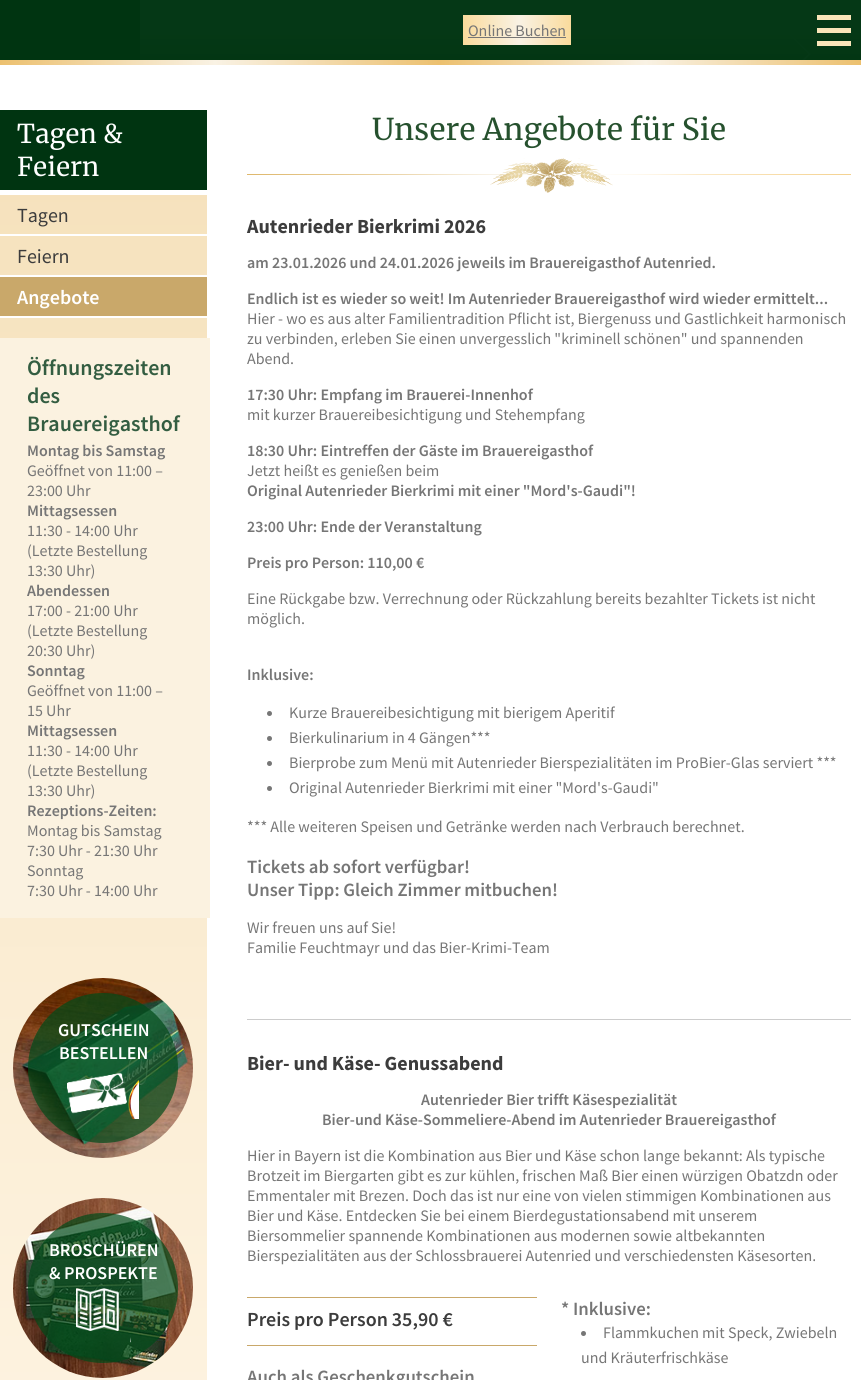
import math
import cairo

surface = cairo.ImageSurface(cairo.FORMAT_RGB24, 861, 1380)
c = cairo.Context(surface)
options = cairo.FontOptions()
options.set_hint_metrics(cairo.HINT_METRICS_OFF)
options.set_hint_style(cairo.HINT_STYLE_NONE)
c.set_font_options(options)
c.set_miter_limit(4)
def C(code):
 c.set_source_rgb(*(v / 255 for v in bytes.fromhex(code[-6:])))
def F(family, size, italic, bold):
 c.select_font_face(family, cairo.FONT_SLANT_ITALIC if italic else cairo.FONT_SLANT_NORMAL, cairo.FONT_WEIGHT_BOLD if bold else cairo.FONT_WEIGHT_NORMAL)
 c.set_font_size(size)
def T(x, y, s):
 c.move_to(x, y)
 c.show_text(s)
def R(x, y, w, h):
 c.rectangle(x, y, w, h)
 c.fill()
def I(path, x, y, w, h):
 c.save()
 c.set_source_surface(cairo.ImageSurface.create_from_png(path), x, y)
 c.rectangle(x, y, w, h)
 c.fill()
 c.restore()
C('ffffff')
c.paint()
C('053816')
R(140,0,721,30)
C('003411')
R(0,0,140,60)
gradient = cairo.LinearGradient(431,30,431,60)
gradient.add_color_stop_rgba(0,0.02,0.22,0.086,1)
gradient.add_color_stop_rgba(1,0.012,0.212,0.075,1)
c.set_source(gradient)
R(140,30,721,30)
gradient = cairo.LinearGradient(463,30,571,30)
gradient.add_color_stop_rgba(0,0.98,0.859,0.612,1)
gradient.add_color_stop_rgba(.52,0.976,0.949,0.894,1)
gradient.add_color_stop_rgba(1,0.98,0.859,0.612,1)
c.set_source(gradient)
R(463,15,108,30)
F('Source Sans Pro',16,0,0)
C('767676')
T(468,36,'Online Buchen')
R(468,37,98,1)
C('fae5b9')
R(817,28,34,5)
R(817,15,34,5)
R(817,41,34,5)
I('1.png',786,31,25,29)
gradient = cairo.LinearGradient(0,63,861,62)
gradient.add_color_stop_rgba(0,0.925,0.753,0.435,1)
gradient.add_color_stop_rgba(.25,0.976,0.949,0.894,1)
gradient.add_color_stop_rgba(.51,0.925,0.753,0.435,1)
gradient.add_color_stop_rgba(.75,0.976,0.949,0.894,1)
gradient.add_color_stop_rgba(1,0.925,0.753,0.435,1)
c.set_source(gradient)
R(0,60,861,5)
gradient = cairo.LinearGradient(103,110,104,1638)
gradient.add_color_stop_rgba(0,0.961,0.882,0.733,1)
gradient.add_color_stop_rgba(1,1,0.965,0.902,1)
c.set_source(gradient)
R(0,195,207,1185)
C('003411')
R(0,110,207,80)
F('Merriweather',26,0,0)
C('ffffff')
T(17,143,'Tagen &')
T(17,176,'Feiern')
R(0,234,207,2)
F('Source Sans Pro',20,0,0)
C('3c3c3c')
T(17,222,'Tagen')
C('ffffff')
R(0,275,207,2)
C('3c3c3c')
T(17,263,'Feiern')
C('c9a86a')
R(0,277,207,39)
C('ffffff')
R(0,316,207,2)
F('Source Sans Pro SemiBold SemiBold',20,0,0)
T(17,304,'Angebote')
C('fbf2e0')
R(0,338,210,580)
F('Source Sans Pro SemiBold SemiBold',22,0,0)
C('335d41')
T(27,375,'Öffnungszeiten')
T(27,403,'des')
T(27,431,'Brauereigasthof')
F('Source Sans Pro SemiBold SemiBold',16,0,0)
C('767676')
T(27,456,'Montag bis Samstag')
F('Source Sans Pro',16,0,0)
T(27,476,'Geöffnet von 11:00 –')
T(27,496,'23:00 Uhr')
F('Source Sans Pro SemiBold SemiBold',16,0,0)
T(27,516,'Mittagsessen')
F('Source Sans Pro',16,0,0)
T(27,536,'11:30 - 14:00 Uhr')
T(27,556,'(Letzte Bestellung')
T(27,576,'13:30 Uhr)')
F('Source Sans Pro SemiBold SemiBold',16,0,0)
T(27,596,'Abendessen')
F('Source Sans Pro',16,0,0)
T(27,616,'17:00 - 21:00 Uhr')
T(27,636,'(Letzte Bestellung')
T(27,656,'20:30 Uhr)')
F('Source Sans Pro SemiBold SemiBold',16,0,0)
T(27,676,'Sonntag')
F('Source Sans Pro',16,0,0)
T(27,696,'Geöffnet von 11:00 –')
T(27,716,'15 Uhr')
F('Source Sans Pro SemiBold SemiBold',16,0,0)
T(27,736,'Mittagsessen')
F('Source Sans Pro',16,0,0)
T(27,756,'11:30 - 14:00 Uhr')
T(27,776,'(Letzte Bestellung')
T(27,796,'13:30 Uhr)')
F('Source Sans Pro SemiBold SemiBold',16,0,0)
T(27,816,'Rezeptions-Zeiten:')
F('Source Sans Pro',16,0,0)
T(27,836,'Montag bis Samstag')
T(27,856,'7:30 Uhr - 21:30 Uhr')
T(27,876,'Sonntag')
T(27,896,'7:30 Uhr - 14:00 Uhr')
I('2.png',13,978,180,180)
c.set_source_rgba(0,0.294,0.098,0.7)
c.arc(103,1068,75,0,2 * math.pi)
c.fill()
F('Source Sans Pro SemiBold SemiBold',18,0,0)
C('ffffff')
T(58,1036,'GUTSCHEIN')
T(59,1059,'BESTELLEN')
I('3.png',67,1072,72,47)
I('4.png',13,1198,180,180)
c.set_source_rgba(0,0.294,0.098,0.7)
c.arc(103,1288,75,0,2 * math.pi)
c.fill()
C('ffffff')
T(49,1256,'BROSCHÜREN')
T(49,1279,'& PROSPEKTE')
I('5.png',75,1288,56,55)
F('Merriweather',30,0,0)
C('26512e')
T(372,140,'Unsere Angebote für Sie')
I('6.png',247,158,604,35)
F('Source Sans Pro',20,0,1)
C('3c3c3c')
T(247,233,'Autenrieder Bierkrimi 2026')
F('Source Sans Pro SemiBold SemiBold',16,0,0)
C('767676')
T(247,268,'am 23.01.2026 und 24.01.2026 jeweils im Brauereigasthof Autenried.')
T(247,304,'Endlich ist es wieder so weit! Im Autenrieder Brauereigasthof wird wieder ermittelt...')
F('Source Sans Pro',16,0,0)
T(247,324,'Hier - wo es aus alter Familientradition Pflicht ist, Biergenuss und Gastlichkeit harmonisch')
T(247,344,'zu verbinden, erleben Sie einen unvergesslich "kriminell schönen" und spannenden')
T(247,364,'Abend.')
F('Source Sans Pro SemiBold SemiBold',16,0,0)
T(247,400,'17:30 Uhr: Empfang im Brauerei-Innenhof')
F('Source Sans Pro',16,0,0)
T(247,420,'mit kurzer Brauereibesichtigung und Stehempfang')
F('Source Sans Pro SemiBold SemiBold',16,0,0)
T(247,456,'18:30 Uhr: Eintreffen der Gäste im Brauereigasthof')
F('Source Sans Pro',16,0,0)
T(247,476,'Jetzt heißt es genießen beim')
F('Source Sans Pro SemiBold SemiBold',16,0,0)
T(247,496,'Original Autenrieder Bierkrimi mit einer "Mord\'s-Gaudi"!')
T(247,532,'23:00 Uhr: Ende der Veranstaltung')
T(247,568,'Preis pro Person: 110,00 €')
F('Source Sans Pro',16,0,0)
T(247,604,'Eine Rückgabe bzw. Verrechnung oder Rückzahlung bereits bezahlter Tickets ist nicht')
T(247,624,'möglich.')
F('Source Sans Pro SemiBold SemiBold',16,0,0)
T(247,680,'Inklusive:')
c.new_path()
c.arc(269.5,713.5,2.5,0,2 * math.pi)
c.fill()
F('Source Sans Pro',16,0,0)
T(289,718,'Kurze Brauereibesichtigung mit bierigem Aperitif')
c.new_path()
c.arc(269.5,738.5,2.5,0,2 * math.pi)
c.fill()
T(289,743,'Bierkulinarium in 4 Gängen***')
c.new_path()
c.arc(269.5,763.5,2.5,0,2 * math.pi)
c.fill()
T(289,768,'Bierprobe zum Menü mit Autenrieder Bierspezialitäten im ProBier-Glas serviert ***')
c.new_path()
c.arc(269.5,788.5,2.5,0,2 * math.pi)
c.fill()
T(289,793,'Original Autenrieder Bierkrimi mit einer "Mord\'s-Gaudi"')
T(247,832,'*** Alle weiteren Speisen und Getränke werden nach Verbrauch berechnet.')
F('Source Sans Pro SemiBold SemiBold',18.75,0,0)
T(247,873,'Tickets ab sofort verfügbar!')
T(247,896,'Unser Tipp: Gleich Zimmer mitbuchen!')
F('Source Sans Pro',16,0,0)
T(247,933,'Wir freuen uns auf Sie!')
T(247,953,'Familie Feuchtmayr und das Bier-Krimi-Team')
C('cccccc')
R(247,1019,604,1)
F('Source Sans Pro',20,0,1)
C('3c3c3c')
T(247,1070,'Bier- und Käse- Genussabend')
F('Source Sans Pro SemiBold SemiBold',16,0,0)
C('767676')
T(421,1105,'Autenrieder Bier trifft Käsespezialität')
T(322,1125,'Bier-und Käse-Sommeliere-Abend im Autenrieder Brauereigasthof')
F('Source Sans Pro',16,0,0)
T(247,1161,'Hier in Bayern ist die Kombination aus Bier und Käse schon lange bekannt: Als typische')
T(247,1181,'Brotzeit im Biergarten gibt es zur kühlen, frischen Maß Bier einen würzigen Obatzdn oder')
T(247,1201,'Emmentaler mit Brezen. Doch das ist nur eine von vielen stimmigen Kombinationen aus')
T(247,1221,'Bier und Käse. Entdecken Sie bei einem Bierdegustationsabend mit unserem')
T(247,1241,'Biersommelier spannende Kombinationen aus modernen sowie altbekannten')
T(247,1261,'Bierspezialitäten aus der Schlossbrauerei Autenried und verschiedensten Käsesorten.')
C('c9a86a')
R(247,1297,290,1)
F('Source Sans Pro SemiBold SemiBold',20,0,0)
C('3c3c3c')
T(247,1326,'Preis pro Person 35,90 €')
C('c9a86a')
R(247,1345,290,1)
F('Source Sans Pro SemiBold SemiBold',18.75,0,0)
C('767676')
T(247,1383,'Auch als Geschenkgutschein')
T(561,1315,'* Inklusive:')
c.new_path()
c.arc(583.5,1333.5,2.5,0,2 * math.pi)
c.fill()
F('Source Sans Pro',16,0,0)
T(603,1338,'Flammkuchen mit Speck, Zwiebeln')
T(581,1363,'und Kräuterfrischkäse')
surface.write_to_png('o.png')
